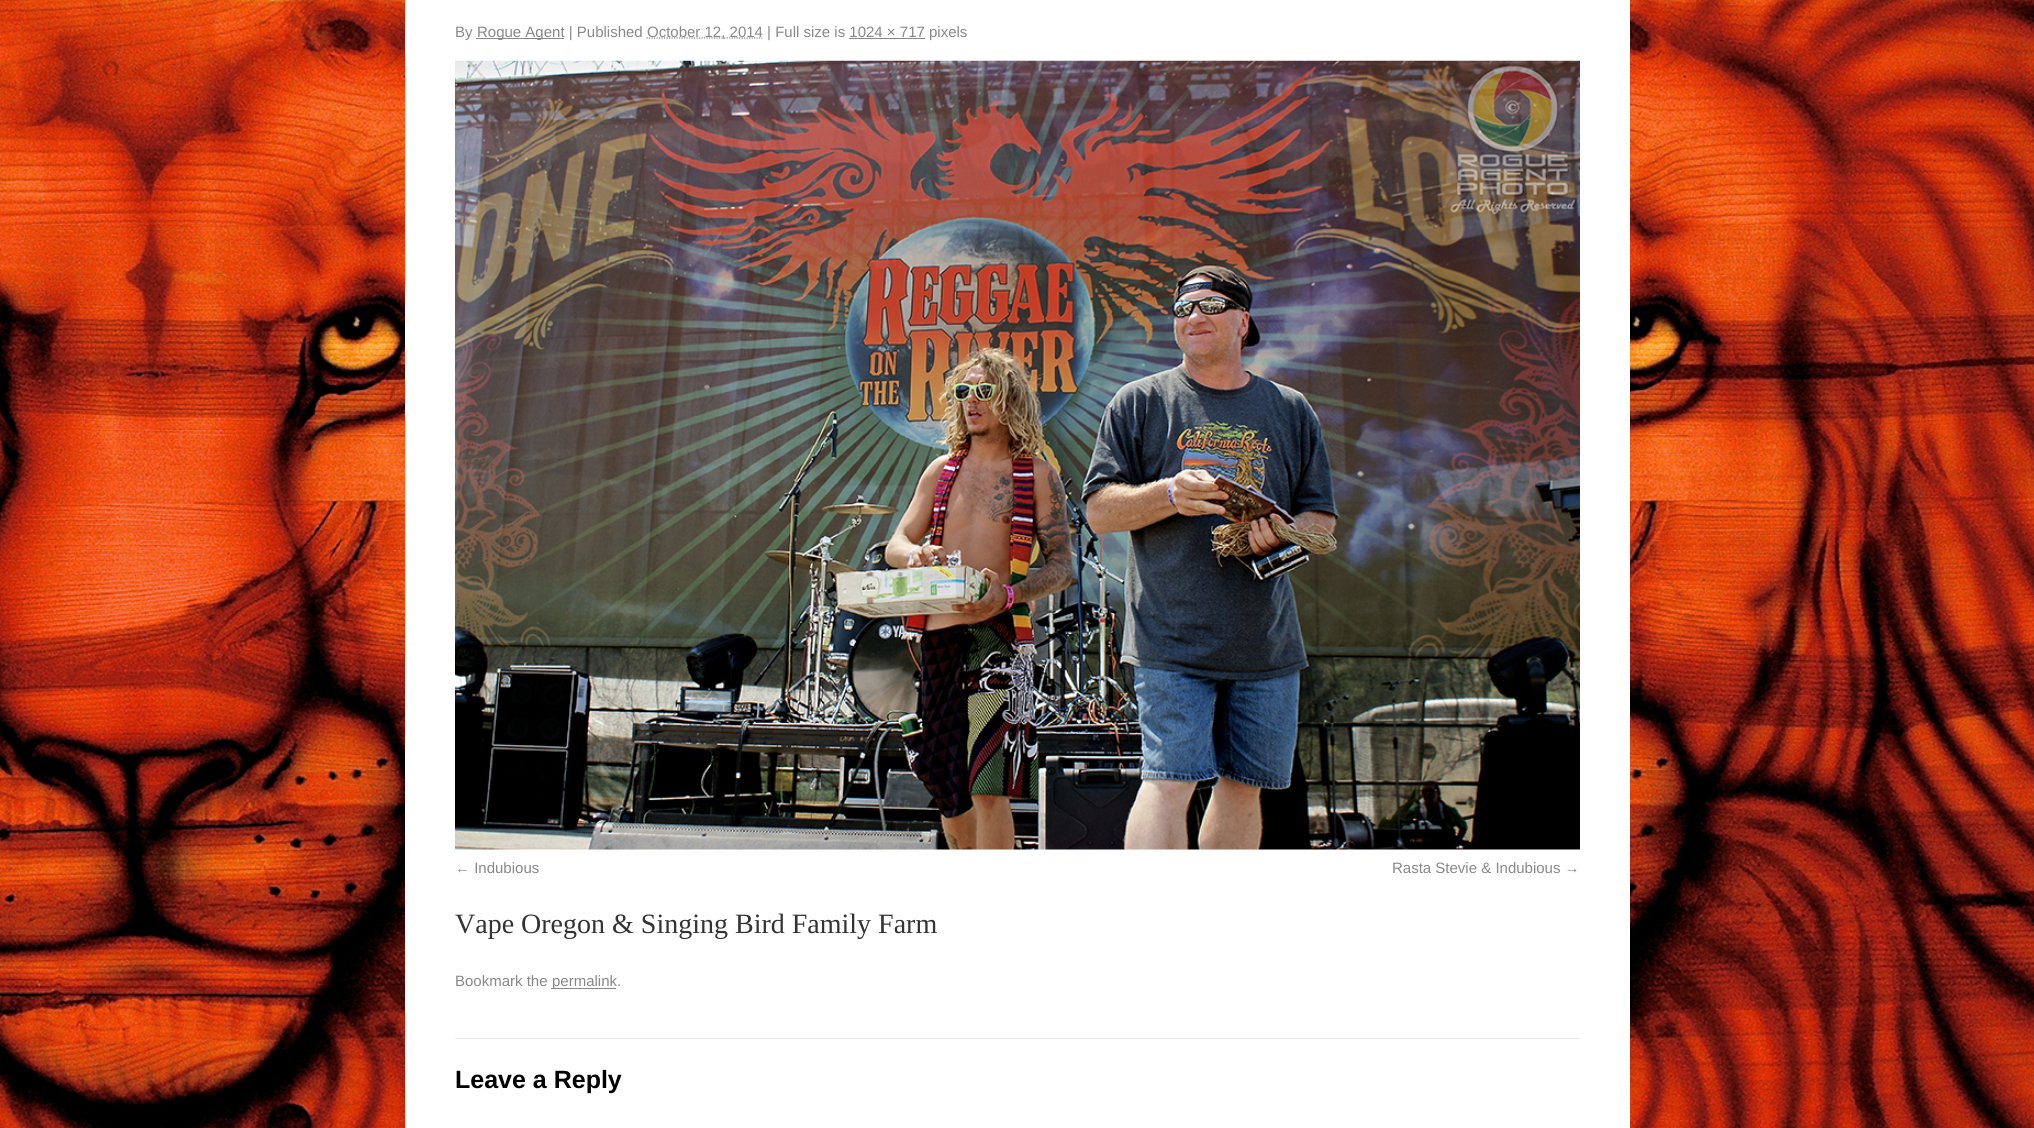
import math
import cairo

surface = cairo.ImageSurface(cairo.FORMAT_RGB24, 2034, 1128)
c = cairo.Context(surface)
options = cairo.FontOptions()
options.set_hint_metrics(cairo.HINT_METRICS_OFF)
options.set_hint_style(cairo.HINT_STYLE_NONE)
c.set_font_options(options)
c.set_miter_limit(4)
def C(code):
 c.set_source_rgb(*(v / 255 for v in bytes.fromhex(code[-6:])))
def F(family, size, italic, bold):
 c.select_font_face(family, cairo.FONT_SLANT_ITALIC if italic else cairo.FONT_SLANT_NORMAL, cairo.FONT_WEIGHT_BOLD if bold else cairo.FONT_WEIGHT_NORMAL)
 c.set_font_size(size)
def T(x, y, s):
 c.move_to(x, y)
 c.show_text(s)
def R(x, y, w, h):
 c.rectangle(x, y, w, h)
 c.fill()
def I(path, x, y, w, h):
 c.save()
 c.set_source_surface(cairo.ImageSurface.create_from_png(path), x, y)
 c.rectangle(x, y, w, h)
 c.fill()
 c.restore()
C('ffffff')
c.paint()
I('1.png',0,0,2034,1128)
C('ffffff')
R(405,0,1225,1128)
F('Liberation Sans',15,0,0)
C('888888')
T(455,37,'By')
R(476,38,88,1)
T(477,37,'Rogue Agent | Published')
c.new_path()
c.move_to(646.5,38)
c.line_to(762.5,38)
c.set_line_width(1.2)
c.set_dash([1.25,1.25])
c.stroke()
T(647,37,'October 12, 2014 | Full size is 1024 × 717 pixels')
R(849,38,76,1)
I('2.png',455,60,1125,790)
T(455,873,'← Indubious')
T(1392,873,'Rasta Stevie & Indubious →')
F('Liberation Serif',28,0,0)
C('333333')
T(455,933,'Vape Oregon & Singing Bird Family Farm')
F('Liberation Sans',15,0,0)
C('888888')
T(455,986,'Bookmark the')
R(551,988,65,1)
T(552,986,'permalink.')
C('e7e7e7')
R(455,1038,1125,1)
F('Liberation Sans',25,0,1)
C('000000')
T(455,1088,'Leave a Reply')
surface.write_to_png('o.png')
